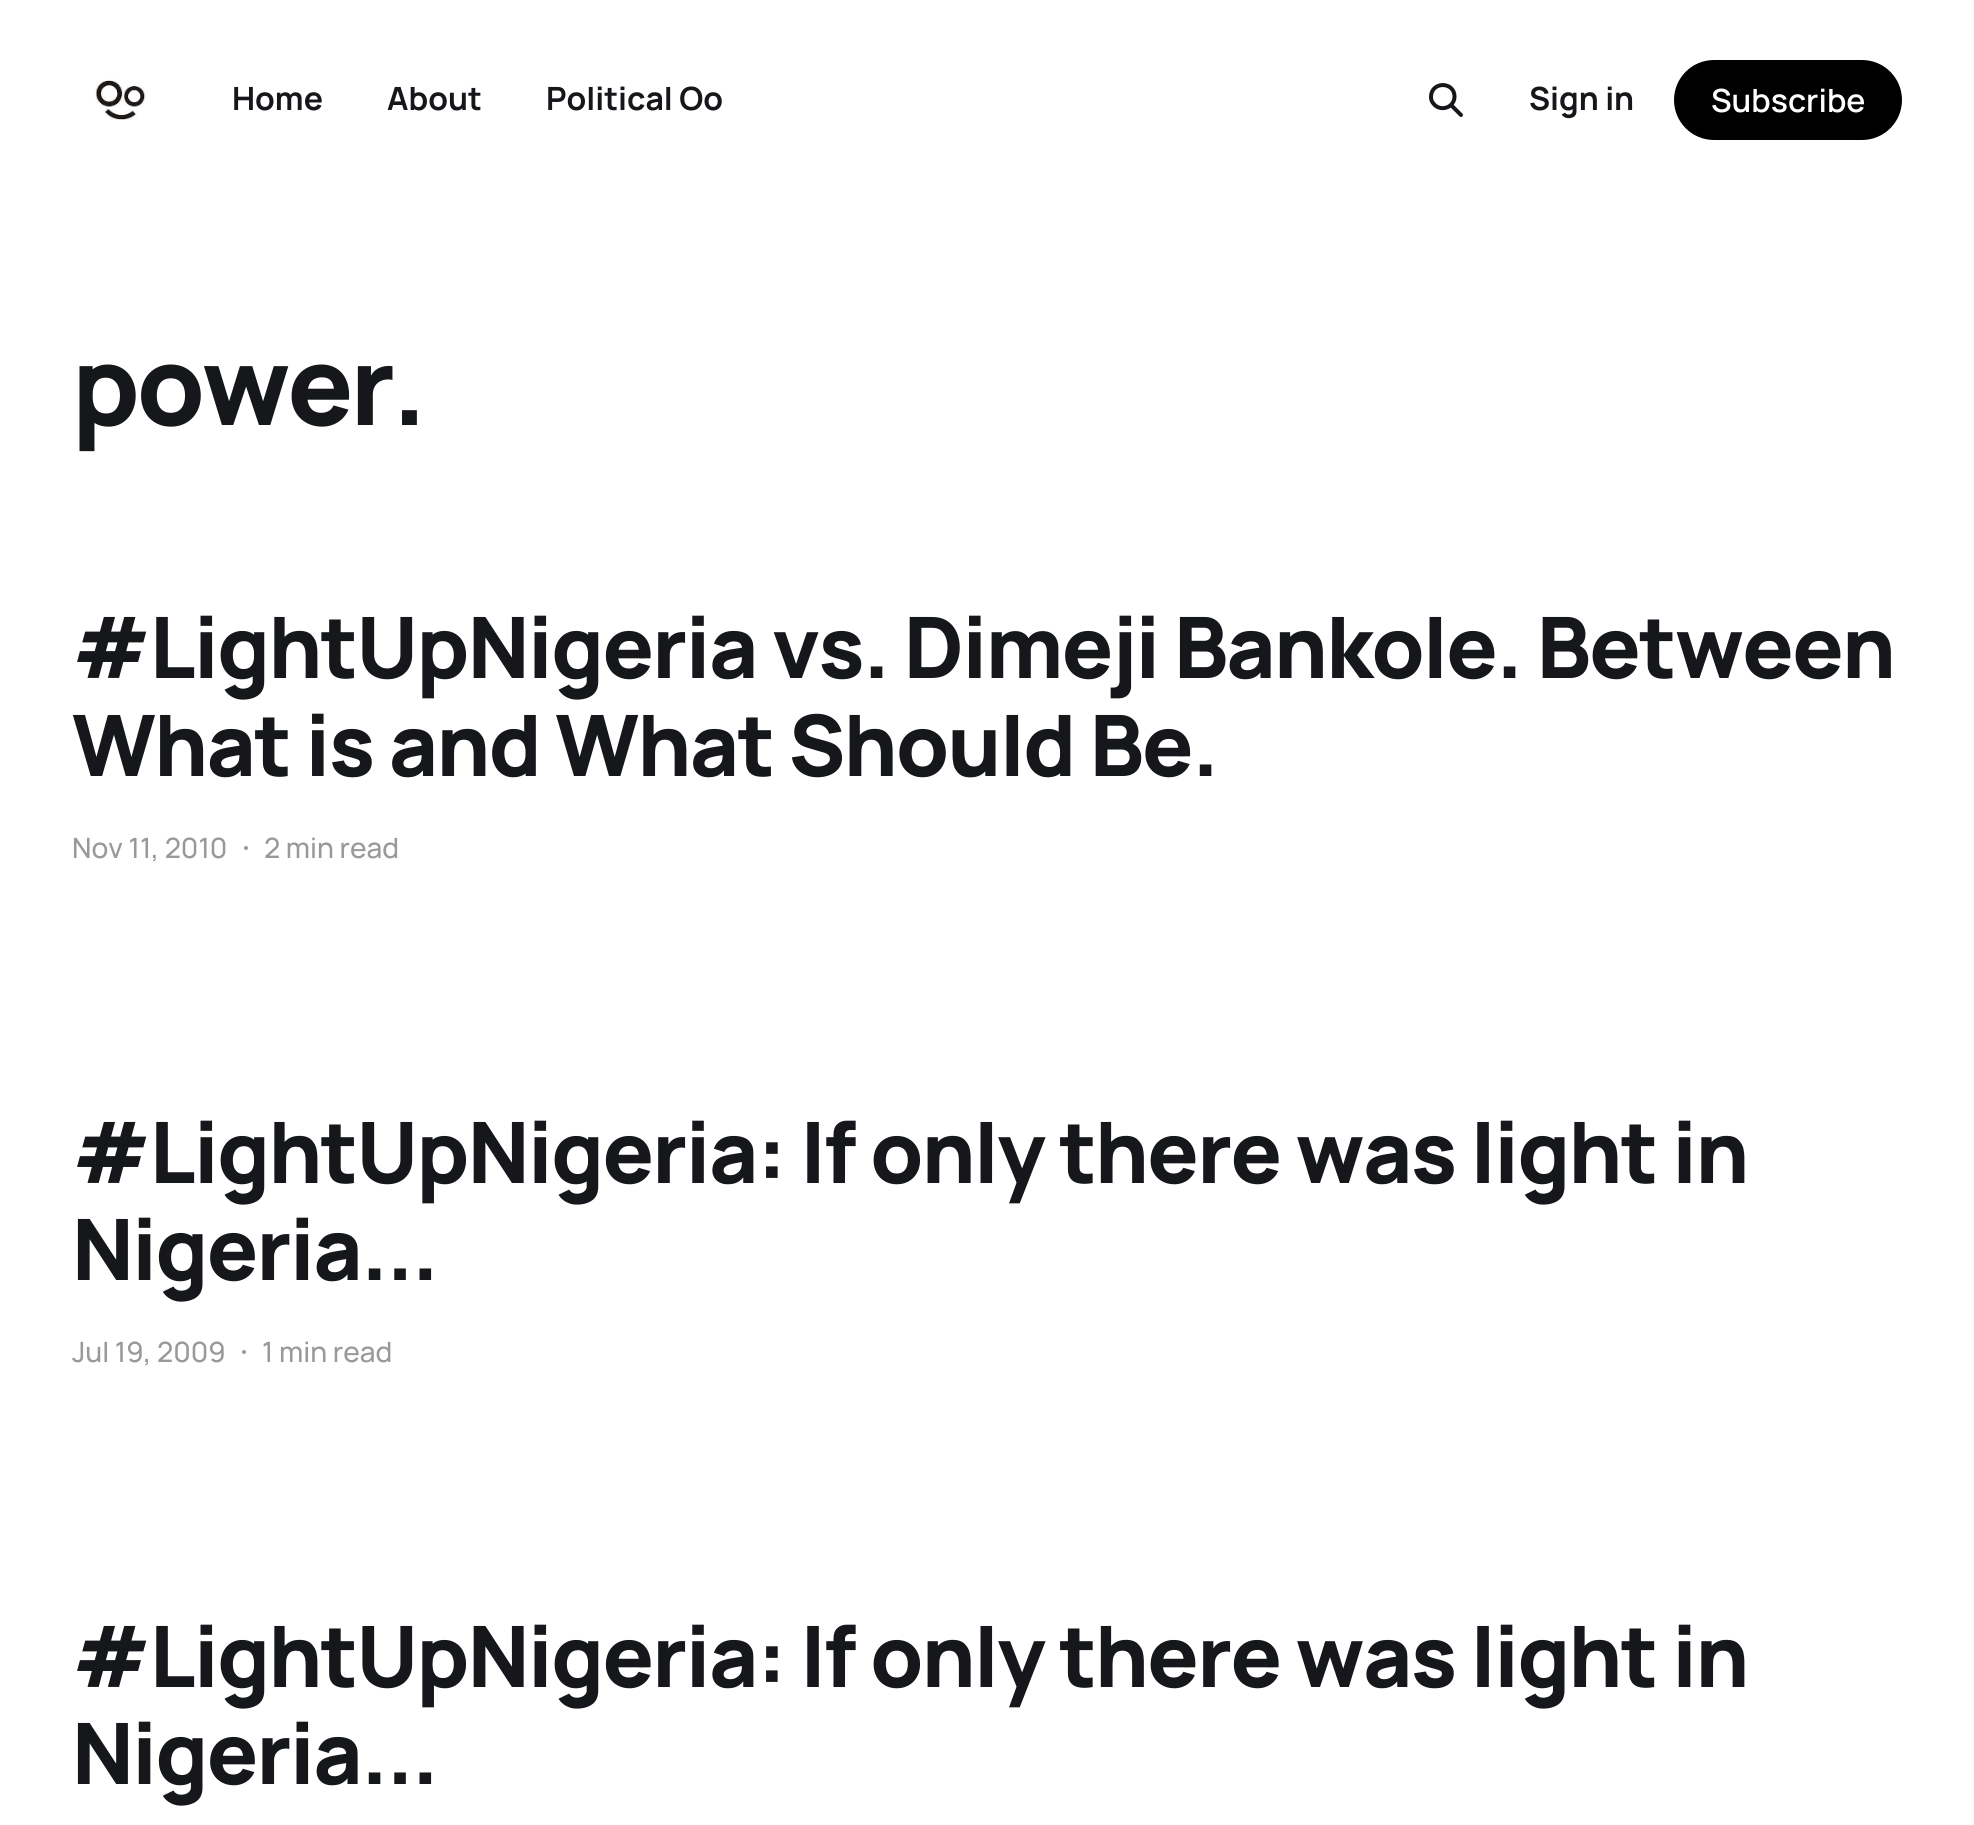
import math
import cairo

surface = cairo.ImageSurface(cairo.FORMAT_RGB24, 1974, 1825)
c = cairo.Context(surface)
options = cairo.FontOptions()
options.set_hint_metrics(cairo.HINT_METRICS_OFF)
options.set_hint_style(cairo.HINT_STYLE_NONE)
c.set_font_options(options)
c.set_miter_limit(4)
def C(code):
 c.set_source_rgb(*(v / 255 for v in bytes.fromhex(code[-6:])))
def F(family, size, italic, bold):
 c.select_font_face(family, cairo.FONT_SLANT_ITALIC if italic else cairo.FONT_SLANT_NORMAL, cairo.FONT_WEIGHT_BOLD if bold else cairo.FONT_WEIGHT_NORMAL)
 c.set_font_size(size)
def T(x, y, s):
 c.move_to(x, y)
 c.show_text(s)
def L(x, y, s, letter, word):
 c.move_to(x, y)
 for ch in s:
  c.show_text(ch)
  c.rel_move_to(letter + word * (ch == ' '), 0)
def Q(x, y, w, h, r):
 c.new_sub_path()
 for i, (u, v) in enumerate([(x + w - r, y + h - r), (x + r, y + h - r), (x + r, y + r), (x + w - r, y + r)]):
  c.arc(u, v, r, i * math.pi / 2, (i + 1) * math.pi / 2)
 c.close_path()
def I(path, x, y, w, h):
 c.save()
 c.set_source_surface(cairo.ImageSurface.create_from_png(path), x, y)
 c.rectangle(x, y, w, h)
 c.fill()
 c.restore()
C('ffffff')
c.paint()
I('1.png',95,79,52,41)
F('Manrope',32,0,1)
C('15171a')
T(232,110,'Home')
T(387,110,'About')
T(546,110,'Political Oo')
c.new_path()
c.move_to(1461,115)
c.line_to(1451,105)
c.close_path()
c.move_to(1454.5,96.5)
c.curve_to(1454.5,108,1439.5,112.5,1433,103)
c.curve_to(1431.5,101.5,1431,99,1431,96.5)
c.curve_to(1431.5,81,1454.5,81.5,1454.5,96.5)
c.close_path()
c.set_line_width(4)
c.set_line_cap(cairo.LINE_CAP_ROUND)
c.set_line_join(cairo.LINE_JOIN_ROUND)
c.stroke()
T(1529,110,'Sign in')
C('000000')
Q(1674,60,228,80,40)
c.fill()
F('Manrope SemiBold',32,0,0)
C('ffffff')
T(1711,112,'Subscribe')
F('Manrope ExtraBold',109,0,0)
C('15171a')
L(72,425,'power.',-3.25,0)
F('Manrope ExtraBold',84.8,0,0)
L(72,678,'#LightUpNigeria vs. Dimeji Bankole. Between',-1.7,0)
L(72,776,'What is and What Should Be.',-1.7,0)
F('Manrope Medium',28,0,0)
C('999999')
T(72,858,'Nov 11, 2010')
c.new_path()
c.arc(246,848,2,0,2 * math.pi)
c.fill()
T(264,858,'2 min read')
F('Manrope ExtraBold',84.8,0,0)
C('15171a')
L(72,1183,'#LightUpNigeria: If only there was light in',-1.7,0)
L(72,1280,'Nigeria...',-1.7,0)
F('Manrope Medium',28,0,0)
C('999999')
T(72,1362,'Jul 19, 2009')
c.new_path()
c.arc(244,1352,2,0,2 * math.pi)
c.fill()
T(262,1362,'1 min read')
F('Manrope ExtraBold',84.8,0,0)
C('15171a')
L(72,1687,'#LightUpNigeria: If only there was light in',-1.7,0)
L(72,1784,'Nigeria...',-1.7,0)
surface.write_to_png('o.png')
